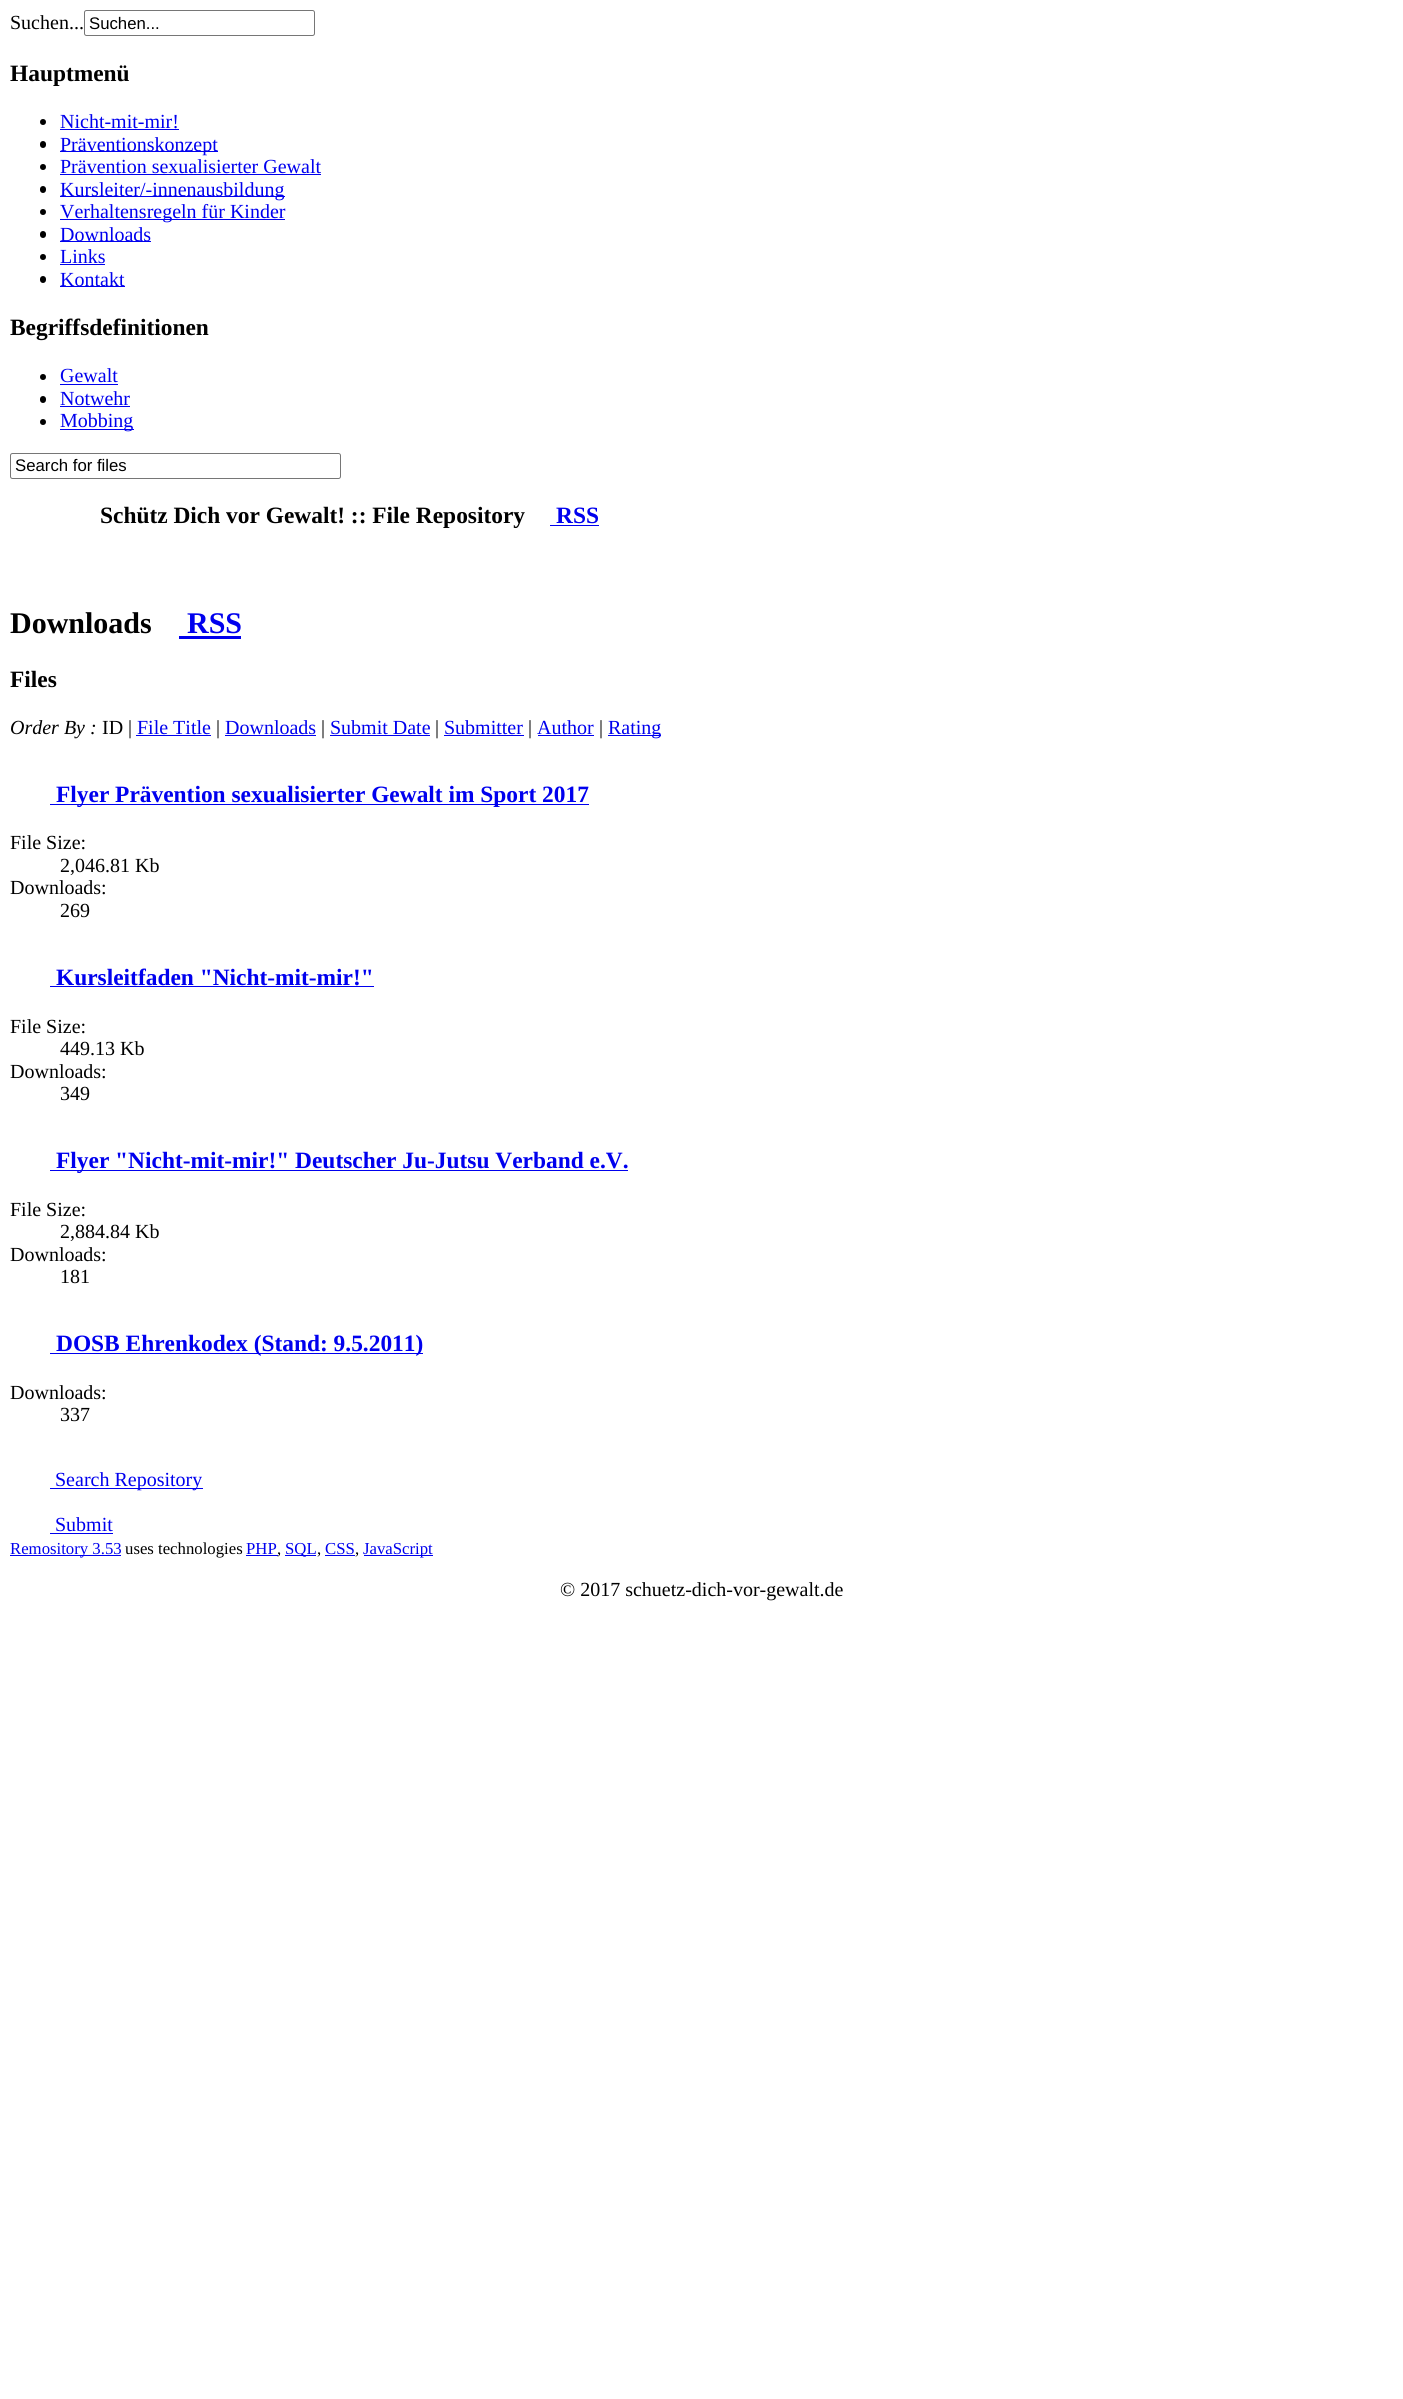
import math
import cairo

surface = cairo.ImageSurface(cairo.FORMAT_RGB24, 1403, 2399)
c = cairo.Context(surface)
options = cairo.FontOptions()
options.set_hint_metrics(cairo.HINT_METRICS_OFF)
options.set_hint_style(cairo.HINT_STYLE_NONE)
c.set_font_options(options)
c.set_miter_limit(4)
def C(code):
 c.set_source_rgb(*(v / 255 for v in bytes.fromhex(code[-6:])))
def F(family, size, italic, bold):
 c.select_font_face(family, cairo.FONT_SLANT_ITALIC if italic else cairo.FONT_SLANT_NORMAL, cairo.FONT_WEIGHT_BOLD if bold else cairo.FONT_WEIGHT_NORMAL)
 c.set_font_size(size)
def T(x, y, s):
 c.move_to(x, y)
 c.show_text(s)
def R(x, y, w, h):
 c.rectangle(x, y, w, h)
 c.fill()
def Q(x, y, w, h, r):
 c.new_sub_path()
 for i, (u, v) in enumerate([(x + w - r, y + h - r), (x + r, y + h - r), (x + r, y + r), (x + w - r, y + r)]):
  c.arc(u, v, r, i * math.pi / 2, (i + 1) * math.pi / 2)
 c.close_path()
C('ffffff')
c.paint()
F('Liberation Serif',20,0,0)
C('000000')
T(10,29,'Suchen...')
Q(84.5,10.5,230,25,2)
C('767676')
c.set_line_width(1)
c.stroke()
F('Liberation Sans',16.75,0,0)
C('000000')
T(89,29,'Suchen...')
F('Liberation Serif',23.4,0,1)
T(10,81,'Hauptmenü')
c.new_path()
c.arc(43,122,3,0,2 * math.pi)
c.fill()
F('Liberation Serif',20,0,0)
C('0000ee')
T(60,128,'Nicht-mit-mir!')
R(60,129,119,1)
C('000000')
Q(40,141,6,7,3)
c.fill()
C('0000ee')
R(60,151,158,1)
T(60,151,'Präventionskonzept')
C('000000')
c.new_path()
c.arc(43,167,3,0,2 * math.pi)
c.fill()
C('0000ee')
T(60,173,'Prävention sexualisierter Gewalt')
R(60,174,261,1)
C('000000')
Q(40,186,6,7,3)
c.fill()
C('0000ee')
R(60,196,225,1)
T(60,196,'Kursleiter/-innenausbildung')
C('000000')
c.new_path()
c.arc(43,212,3,0,2 * math.pi)
c.fill()
C('0000ee')
R(60,219,225,1)
T(60,218,'Verhaltensregeln für Kinder')
C('000000')
Q(40,231,6,7,3)
c.fill()
C('0000ee')
R(60,241,91,1)
T(60,241,'Downloads')
C('000000')
c.new_path()
c.arc(43,257,3,0,2 * math.pi)
c.fill()
C('0000ee')
T(60,263,'Links')
R(60,264,45,1)
C('000000')
Q(40,276,6,7,3)
c.fill()
C('0000ee')
R(60,286,65,1)
T(60,286,'Kontakt')
F('Liberation Serif',23.4,0,1)
C('000000')
T(10,335,'Begriffsdefinitionen')
c.new_path()
c.arc(43,377,3,0,2 * math.pi)
c.fill()
F('Liberation Serif',20,0,0)
C('0000ee')
T(60,382,'Gewalt')
R(60,384,58,1)
C('000000')
Q(40,396,6,7,3)
c.fill()
C('0000ee')
T(60,405,'Notwehr')
R(60,406,70,1)
C('000000')
c.new_path()
c.arc(43,422,3,0,2 * math.pi)
c.fill()
C('0000ee')
R(60,429,74,1)
T(60,427,'Mobbing')
Q(10.5,453.5,330,25,2)
C('767676')
c.stroke()
F('Liberation Sans',16.75,0,0)
C('000000')
T(15,471,'Search for files')
F('Liberation Serif',23.4,0,1)
T(100,523,'Schütz Dich vor Gewalt! :: File Repository')
C('0000ee')
T(556,523,'RSS')
R(550,525,49,1)
F('Liberation Serif',30,0,1)
C('000000')
T(10,633,'Downloads')
C('0000ee')
T(187,633,'RSS')
R(179,636,62,3)
F('Liberation Serif',23.4,0,1)
C('000000')
T(10,687,'Files')
F('Liberation Serif',20,1,0)
T(10,734,'Order By :')
F('Liberation Serif',20,0,0)
T(102,734,'ID |')
C('0000ee')
T(137,734,'File Title')
R(136,735,75,1)
C('000000')
T(216,734,'|')
C('0000ee')
T(225,734,'Downloads')
R(225,735,91,1)
C('000000')
T(321,734,'|')
C('0000ee')
T(330,734,'Submit Date')
R(330,735,100,1)
C('000000')
T(435,734,'|')
C('0000ee')
T(444,734,'Submitter')
R(444,735,80,1)
C('000000')
T(528,734,'|')
C('0000ee')
T(537,734,'Author')
R(538,735,56,1)
C('000000')
T(599,734,'|')
C('0000ee')
R(608,735,53,1)
T(608,734,'Rating')
R(50,804,539,1)
F('Liberation Serif',23.4,0,1)
T(56,802,'Flyer Prävention sexualisierter Gewalt im Sport 2017')
F('Liberation Serif',20,0,0)
C('000000')
T(10,849,'File Size:')
T(60,872,'2,046.81 Kb')
T(10,894,'Downloads:')
T(60,917,'269')
F('Liberation Serif',23.4,0,1)
C('0000ee')
T(56,985,'Kursleitfaden "Nicht-mit-mir!"')
R(50,986,324,1)
F('Liberation Serif',20,0,0)
C('000000')
T(10,1033,'File Size:')
T(60,1055,'449.13 Kb')
T(10,1078,'Downloads:')
T(60,1100,'349')
C('0000ee')
R(50,1170,578,1)
F('Liberation Serif',23.4,0,1)
T(56,1168,'Flyer "Nicht-mit-mir!" Deutscher Ju-Jutsu Verband e.V.')
F('Liberation Serif',20,0,0)
C('000000')
T(10,1216,'File Size:')
T(60,1238,'2,884.84 Kb')
T(10,1261,'Downloads:')
T(60,1283,'181')
C('0000ee')
R(50,1353,373,1)
F('Liberation Serif',23.4,0,1)
T(56,1351,'DOSB Ehrenkodex (Stand: 9.5.2011)')
F('Liberation Serif',20,0,0)
C('000000')
T(10,1399,'Downloads:')
T(60,1421,'337')
C('0000ee')
R(50,1488,153,1)
T(55,1486,'Search Repository')
T(55,1531,'Submit')
R(50,1533,63,1)
R(10,1555,111,1)
F('Liberation Serif',16.75,0,0)
T(10,1554,'Remository 3.53')
C('000000')
T(125,1554,'uses technologies')
C('0000ee')
T(246,1554,'PHP')
R(285,1555,31,1)
T(285,1554,'SQL')
T(325,1554,'CSS')
R(364,1555,69,1)
T(363,1554,'JavaScript')
R(246,1555,32,1)
C('000000')
T(277,1554,',')
T(317,1554,',')
T(355,1554,',')
C('0000ee')
R(325,1555,30,1)
F('Liberation Serif',20,0,0)
C('000000')
T(560,1596,'© 2017 schuetz-dich-vor-gewalt.de')
surface.write_to_png('o.png')
